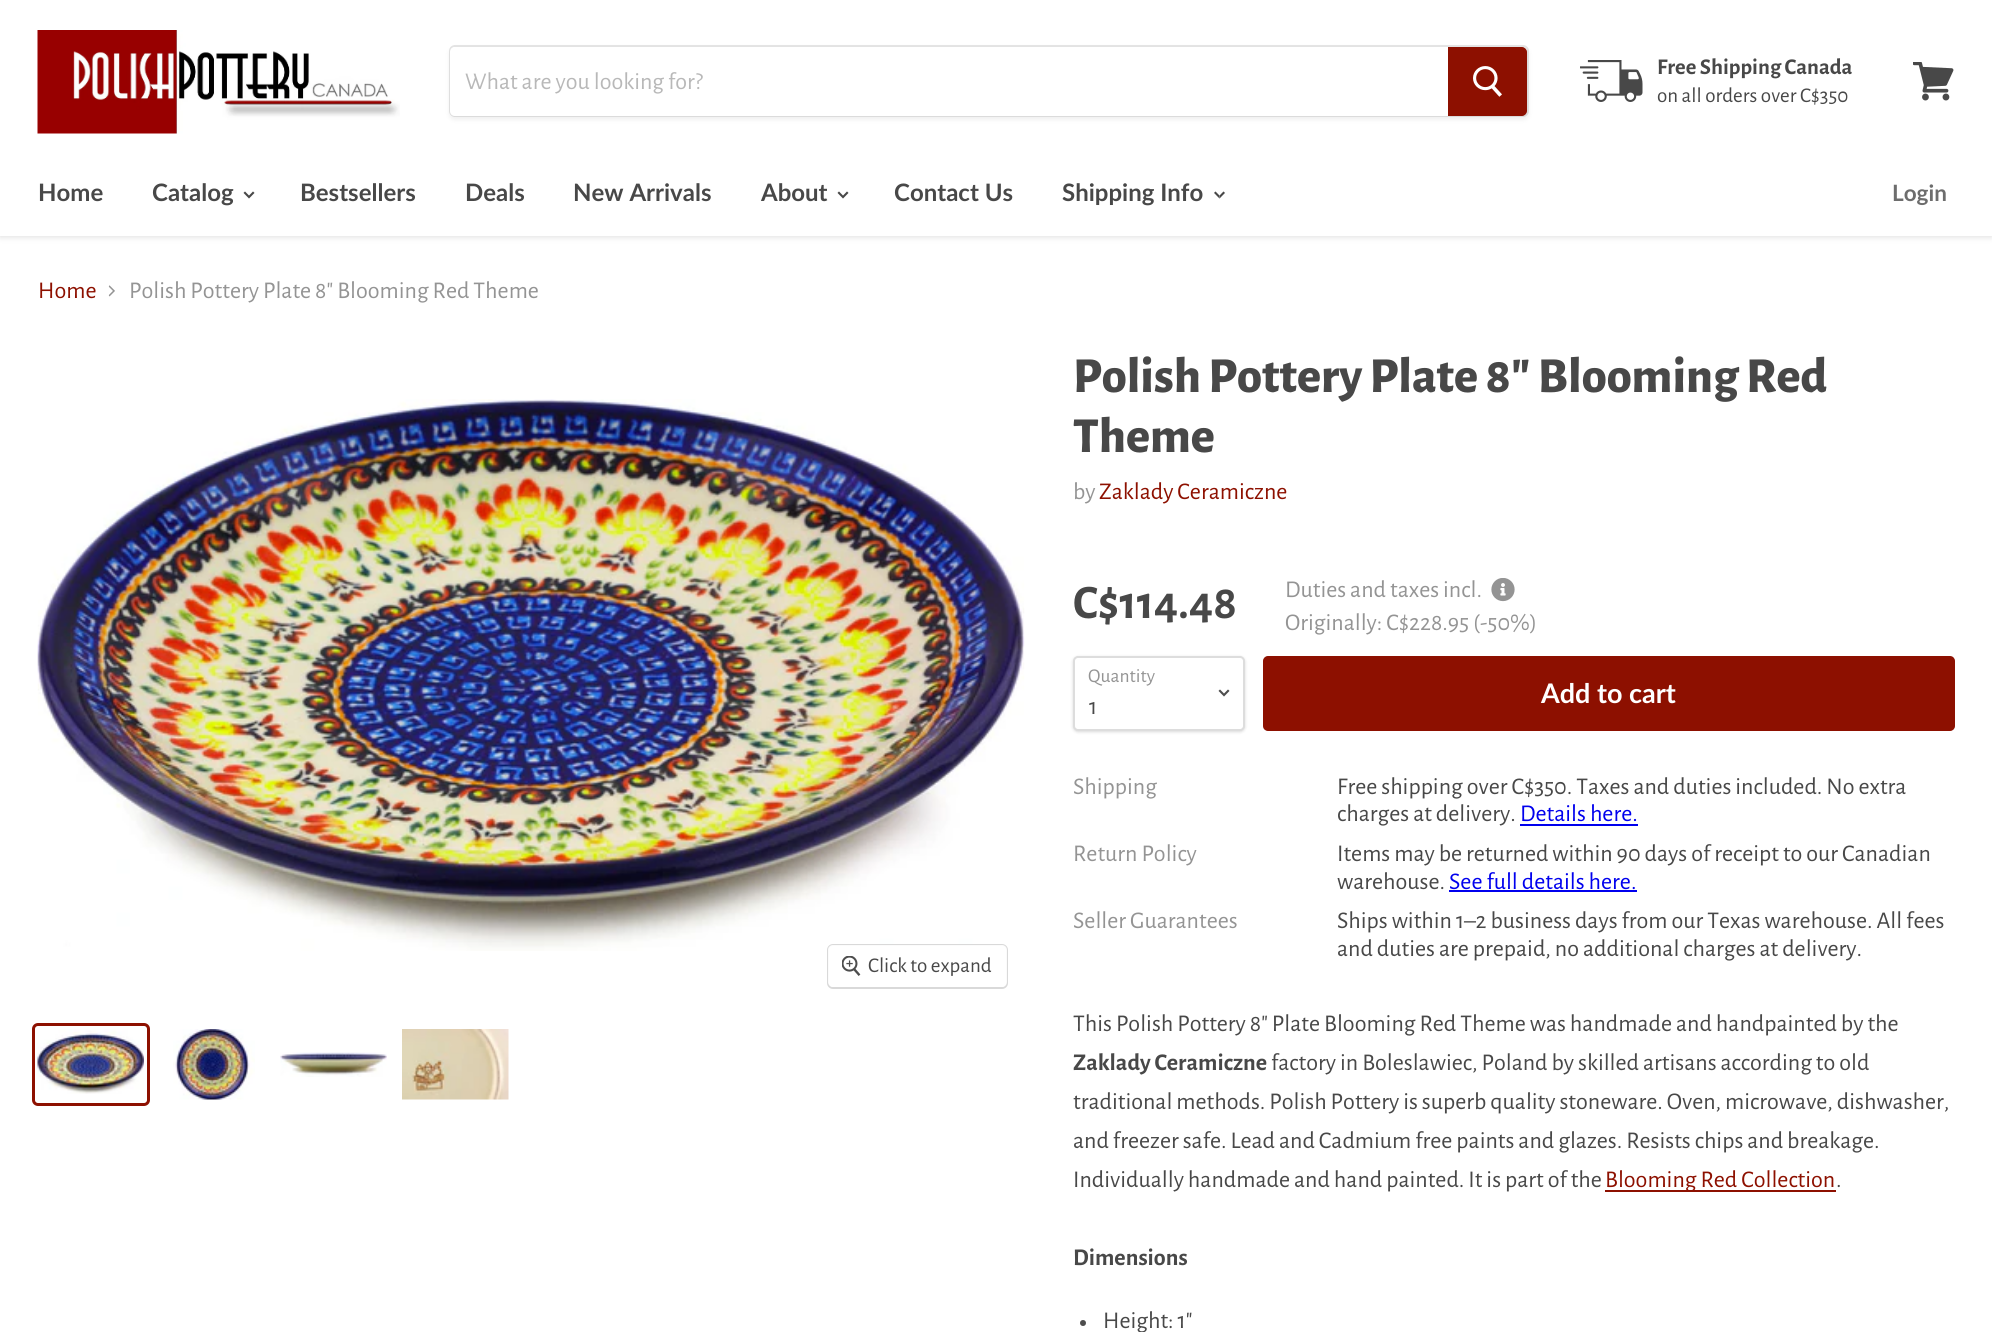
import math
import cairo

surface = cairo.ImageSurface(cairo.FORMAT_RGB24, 1992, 1332)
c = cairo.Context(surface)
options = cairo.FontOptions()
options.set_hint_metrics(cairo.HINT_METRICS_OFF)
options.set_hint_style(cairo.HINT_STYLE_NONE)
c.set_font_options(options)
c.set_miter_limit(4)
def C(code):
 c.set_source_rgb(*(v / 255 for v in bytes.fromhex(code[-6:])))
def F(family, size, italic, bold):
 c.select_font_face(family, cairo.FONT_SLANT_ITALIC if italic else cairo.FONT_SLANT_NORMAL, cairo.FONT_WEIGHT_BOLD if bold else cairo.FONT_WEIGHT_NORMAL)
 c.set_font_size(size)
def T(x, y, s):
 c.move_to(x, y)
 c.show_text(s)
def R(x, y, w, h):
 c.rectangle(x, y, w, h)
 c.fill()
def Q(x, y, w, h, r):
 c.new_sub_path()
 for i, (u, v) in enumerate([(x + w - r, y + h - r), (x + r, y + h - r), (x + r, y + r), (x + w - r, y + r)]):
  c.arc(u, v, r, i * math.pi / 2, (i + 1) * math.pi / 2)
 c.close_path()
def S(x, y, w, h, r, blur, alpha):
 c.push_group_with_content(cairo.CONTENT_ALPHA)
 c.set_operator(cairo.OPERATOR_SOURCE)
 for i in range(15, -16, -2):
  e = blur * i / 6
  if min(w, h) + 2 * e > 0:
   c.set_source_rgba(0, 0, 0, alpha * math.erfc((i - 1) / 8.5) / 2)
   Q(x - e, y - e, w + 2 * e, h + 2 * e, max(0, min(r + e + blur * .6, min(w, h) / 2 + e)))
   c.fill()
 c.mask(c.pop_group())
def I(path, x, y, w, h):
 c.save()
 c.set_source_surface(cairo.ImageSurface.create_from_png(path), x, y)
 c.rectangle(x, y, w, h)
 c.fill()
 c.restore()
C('ffffff')
c.paint()
C('7f7f7f')
S(0,2,1992,235,0,3,.25)
C('ffffff')
R(0,0,1992,236)
I('1.png',37,30,363,104)
C('7f7f7f')
S(449,48,1080,72,6,2,.11)
Q(450,46,1078,70,5)
c.set_source_rgba(0.498,0.498,0.498,0.2)
c.stroke()
C('ffffff')
c.new_path()
c.move_to(455,47)
c.line_to(1448,47)
c.line_to(1448,116)
c.line_to(455,116)
c.curve_to(452,116,450,114,450,111)
c.line_to(450,52)
c.curve_to(450,49,452,47,455,47)
c.close_path()
c.fill()
F('Alegreya Sans',24,0,0)
C('b8b8b8')
T(465,89,'What are you looking for?')
C('8d1000')
c.new_path()
c.move_to(1449,48)
c.line_to(1522,48)
c.curve_to(1524,48,1526,50,1526,52)
c.line_to(1526,111)
c.curve_to(1526,113,1524,115,1522,115)
c.line_to(1449,115)
c.close_path()
c.fill_preserve()
c.stroke()
I('2.png',1473,66,29,31)
I('3.png',1580,60,63,42)
F('Alegreya Sans',22.5,0,1)
C('484848')
T(1657,74,'Free Shipping Canada')
F('Alegreya Sans',21,0,0)
T(1657,102,'on all orders over C$350')
I('4.png',1913,62,41,39)
F('Lato',24,0,1)
T(38,201,'Home')
T(152,201,'Catalog')
I('5.png',243,191,12,8)
T(300,201,'Bestsellers')
T(465,201,'Deals')
T(573,201,'New Arrivals')
T(761,201,'About')
I('5.png',837,191,12,8)
T(894,201,'Contact Us')
T(1062,201,'Shipping Info')
I('6.png',1214,191,11,8)
F('Lato',22.5,0,1)
C('6d6d6d')
T(1892,201,'Login')
F('Alegreya Sans',24,0,0)
C('8d1000')
T(38,298,'Home')
I('7.png',108,285,7,12)
C('949494')
T(129,298,'Polish Pottery Plate 8" Blooming Red Theme')
I('8.png',37,399,988,552)
Q(828,945,179,43,5)
C('d9d9d9')
c.stroke()
c.set_source_rgba(1,1,1,0.9)
Q(828,945,179,42,5)
c.fill()
I('9.png',842,956,19,20)
F('Alegreya Sans',21,0,0)
C('484848')
T(868,972,'Click to expand')
Q(33.5,1024.5,115,80,4.5)
C('8d1000')
c.set_line_width(3)
c.stroke()
I('10.png',37,1029,107,65)
I('11.png',173,1029,82,71)
I('12.png',280,1052,107,25)
I('13.png',402,1029,107,71)
F('Alegreya Sans ExtraBold',50.4,0,0)
C('484848')
T(1073,392,'Polish Pottery Plate 8" Blooming Red')
T(1073,452,'Theme')
F('Alegreya Sans',24,0,0)
C('949494')
T(1073,499,'by')
C('8d1000')
T(1099,499,'Zaklady Ceramiczne')
F('Alegreya Sans',48,0,1)
C('484848')
T(1073,618,'C$114.48')
F('Alegreya Sans',24,0,0)
C('949494')
T(1285,597,'Duties and taxes incl.')
I('14.png',1491,578,24,24)
T(1285,630,'Originally: C$228.95 (-50%)')
C('000000')
S(1073,657,172,75,5,1.5,.15)
C('ffffff')
Q(1074,657,170,73,4)
c.fill_preserve()
C('dddddd')
c.set_line_width(2)
c.stroke()
F('Alegreya Sans',19.5,0,0)
C('949494')
T(1088,682,'Quantity')
I('15.png',1218,689,12,8)
F('Alegreya Sans',24,0,0)
C('484848')
T(1089,714,'1')
C('8d1000')
Q(1264,657,690,73,4)
c.fill_preserve()
c.stroke()
F('Lato',27,0,1)
C('ffffff')
T(1541,703,'Add to cart')
F('Alegreya Sans',24,0,0)
C('949494')
T(1073,794,'Shipping')
C('484848')
T(1337,794,'Free shipping over C$350. Taxes and duties included. No extra')
T(1337,821,'charges at delivery.')
C('0000ee')
T(1520,821,'Details here.')
R(1520,824,118,2)
C('949494')
T(1073,861,'Return Policy')
C('484848')
T(1337,861,'Items may be returned within 90 days of receipt to our Canadian')
T(1337,889,'warehouse.')
C('0000ee')
T(1449,889,'See full details here.')
R(1449,890,188,2)
C('949494')
T(1073,928,'Seller Guarantees')
C('484848')
T(1337,928,'Ships within 1–2 business days from our Texas warehouse. All fees')
T(1337,956,'and duties are prepaid, no additional charges at delivery.')
T(1073,1031,'This Polish Pottery 8" Plate Blooming Red Theme was handmade and handpainted by the')
F('Alegreya Sans',24,0,1)
T(1073,1070,'Zaklady Ceramiczne')
F('Alegreya Sans',24,0,0)
T(1271,1070,'factory in Boleslawiec, Poland by skilled artisans according to old')
T(1073,1109,'traditional methods. Polish Pottery is superb quality stoneware. Oven, microwave, dishwasher,')
T(1073,1148,'and freezer safe. Lead and Cadmium free paints and glazes. Resists chips and breakage.')
T(1073,1187,'Individually handmade and hand painted. It is part of the')
C('8d1000')
R(1605,1190,231,2)
T(1605,1187,'Blooming Red Collection')
C('484848')
T(1836,1187,'.')
F('Alegreya Sans',24,0,1)
T(1073,1265,'Dimensions')
C('4d4d4d')
c.new_path()
c.arc(1083,1323,3,0,2 * math.pi)
c.fill()
F('Alegreya Sans',24,0,0)
C('484848')
T(1103,1328,'Height: 1"')
surface.write_to_png('o.png')
